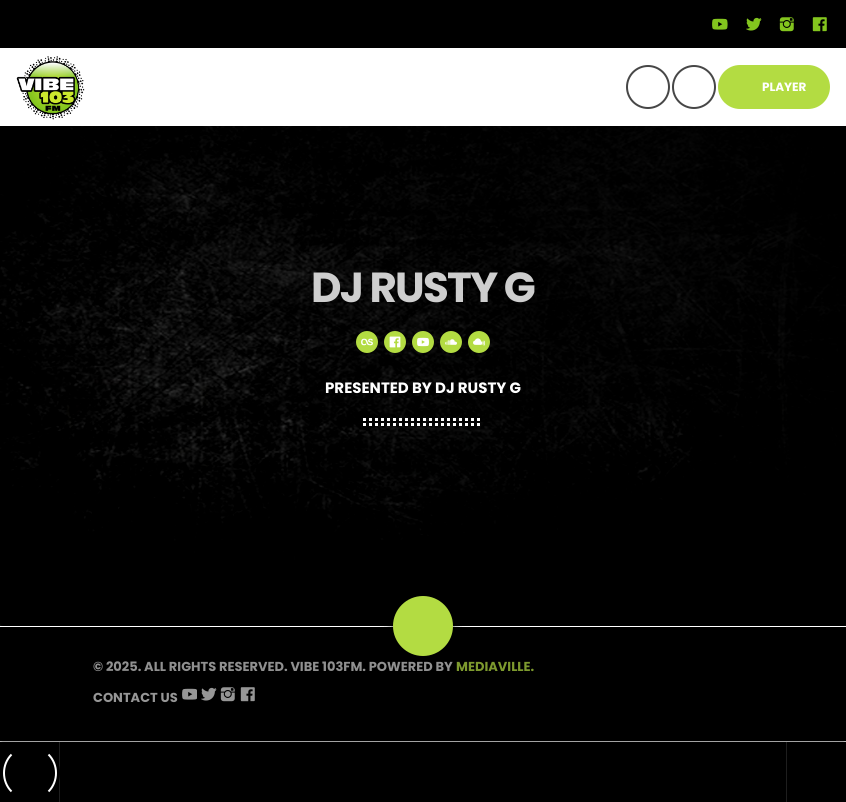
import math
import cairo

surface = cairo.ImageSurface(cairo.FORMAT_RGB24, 846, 802)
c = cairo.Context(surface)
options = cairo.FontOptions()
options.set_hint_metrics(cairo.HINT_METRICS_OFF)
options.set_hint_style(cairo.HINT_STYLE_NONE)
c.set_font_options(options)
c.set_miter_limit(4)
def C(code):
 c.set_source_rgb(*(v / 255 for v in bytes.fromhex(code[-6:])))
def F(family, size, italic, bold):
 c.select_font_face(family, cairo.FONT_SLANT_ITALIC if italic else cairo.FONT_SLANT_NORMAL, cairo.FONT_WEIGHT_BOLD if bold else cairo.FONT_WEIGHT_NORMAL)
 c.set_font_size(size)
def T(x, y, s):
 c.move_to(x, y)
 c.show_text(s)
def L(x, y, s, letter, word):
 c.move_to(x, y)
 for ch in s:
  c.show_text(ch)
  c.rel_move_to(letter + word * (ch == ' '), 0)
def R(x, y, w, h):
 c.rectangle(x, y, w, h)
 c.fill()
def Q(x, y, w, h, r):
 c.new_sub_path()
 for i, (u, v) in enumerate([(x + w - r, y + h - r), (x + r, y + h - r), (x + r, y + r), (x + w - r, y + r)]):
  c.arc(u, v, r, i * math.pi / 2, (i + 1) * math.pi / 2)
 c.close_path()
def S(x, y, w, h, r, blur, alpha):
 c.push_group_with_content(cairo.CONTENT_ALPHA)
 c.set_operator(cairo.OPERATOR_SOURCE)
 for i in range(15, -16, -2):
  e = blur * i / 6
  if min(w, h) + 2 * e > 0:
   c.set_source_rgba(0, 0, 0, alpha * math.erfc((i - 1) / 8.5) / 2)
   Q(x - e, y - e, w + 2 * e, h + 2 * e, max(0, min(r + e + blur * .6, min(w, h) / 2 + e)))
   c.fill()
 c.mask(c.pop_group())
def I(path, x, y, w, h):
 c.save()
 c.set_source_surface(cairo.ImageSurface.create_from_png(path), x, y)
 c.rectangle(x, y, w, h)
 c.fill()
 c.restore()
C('f2f2f2')
c.paint()
C('000000')
S(0,0,846,741,0,10,.65)
C('ffffff')
R(0,48,846,78)
C('000000')
R(0,0,846,48)
I('1.png',712,18,16,12)
I('2.png',746,17,16,14)
I('3.png',779,17,15,15)
I('4.png',812,17,15,15)
I('5.png',16,56,69,64)
c.arc(648,87,21,0,2 * math.pi)
C('474747')
c.stroke()
c.arc(694,87,21,0,2 * math.pi)
c.stroke()
C('b3dc42')
Q(718,65,112,44,22)
c.fill()
F('Poppins',12,0,1)
C('ffffff')
T(762,91,'PLAYER')
R(0,626,846,1)
C('101212')
R(0,623,846,3)
I('6.png',0,126,846,500)
gradient = cairo.LinearGradient(55,681,791,-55)
gradient.add_color_stop_rgba(0,0,0,0,.13)
gradient.add_color_stop_rgba(1,0,0,0,1)
c.set_source(gradient)
R(0,126,846,500)
F('Poppins',42,0,1)
C('cecece')
L(311,302,'DJ RUSTY G',-1.75,0)
C('b3dc42')
c.new_path()
c.arc(367,342,11,0,2 * math.pi)
c.fill()
I('7.png',361,338,12,8)
c.arc(395,342,11,0,2 * math.pi)
c.fill()
I('8.png',389,336,12,12)
c.arc(423,342,11,0,2 * math.pi)
c.fill()
I('9.png',417,337,12,10)
c.arc(451,342,11,0,2 * math.pi)
c.fill()
I('10.png',445,339,12,6)
c.arc(479,342,11,0,2 * math.pi)
c.fill()
I('11.png',473,338,12,8)
F('Poppins',15,0,1)
C('ffffff')
T(325,393,'PRESENTED BY DJ RUSTY G')
c.new_path()
c.move_to(363,419.5)
c.line_to(483,419.5)
c.set_line_width(3)
c.set_dash([3,3])
c.stroke()
c.new_path()
c.move_to(363,424.5)
c.line_to(483,424.5)
c.stroke()
C('000000')
R(0,627,846,114)
C('000000')
S(390,593,66,66,33,7.5,.2)
S(400,603,46,46,23,7.5,.2)
S(400,603,46,46,23,7.5,.2)
S(400,603,46,46,23,7.5,.2)
S(400,603,46,46,23,7.5,.2)
S(400,603,46,46,23,7.5,.2)
S(400,603,46,46,23,7.5,.2)
S(400,603,46,46,23,7.5,.2)
S(400,603,46,46,23,7.5,.2)
C('b3dc42')
c.arc(423,626,30,0,2 * math.pi)
c.fill()
F('Poppins',13,0,1)
C('909090')
T(93,671,'© 2025. ALL RIGHTS RESERVED. VIBE 103FM. POWERED BY')
C('7d9a2e')
T(456,671,'MEDIAVILLE.')
C('969696')
T(93,702,'CONTACT US')
I('12.png',182,688,15,12)
I('13.png',201,687,16,14)
I('14.png',220,687,15,15)
I('15.png',240,687,15,15)
C('000000')
R(0,742,846,60)
C('1e1e1e')
R(59,742,1,60)
C('000000')
c.arc(30,773,30,0,2 * math.pi)
c.fill()
c.new_path()
c.move_to(48.5,754.5)
c.curve_to(58.5,764.5,58.5,781.5,48.5,791.5)
c.move_to(11.5,791.5)
c.curve_to(1.5,781.5,1.5,764.5,11.5,754.5)
C('ffffff')
c.set_line_width(2)
c.set_dash([])
c.stroke()
C('1e1e1e')
R(786,742,1,60)
surface.write_to_png('o.png')
